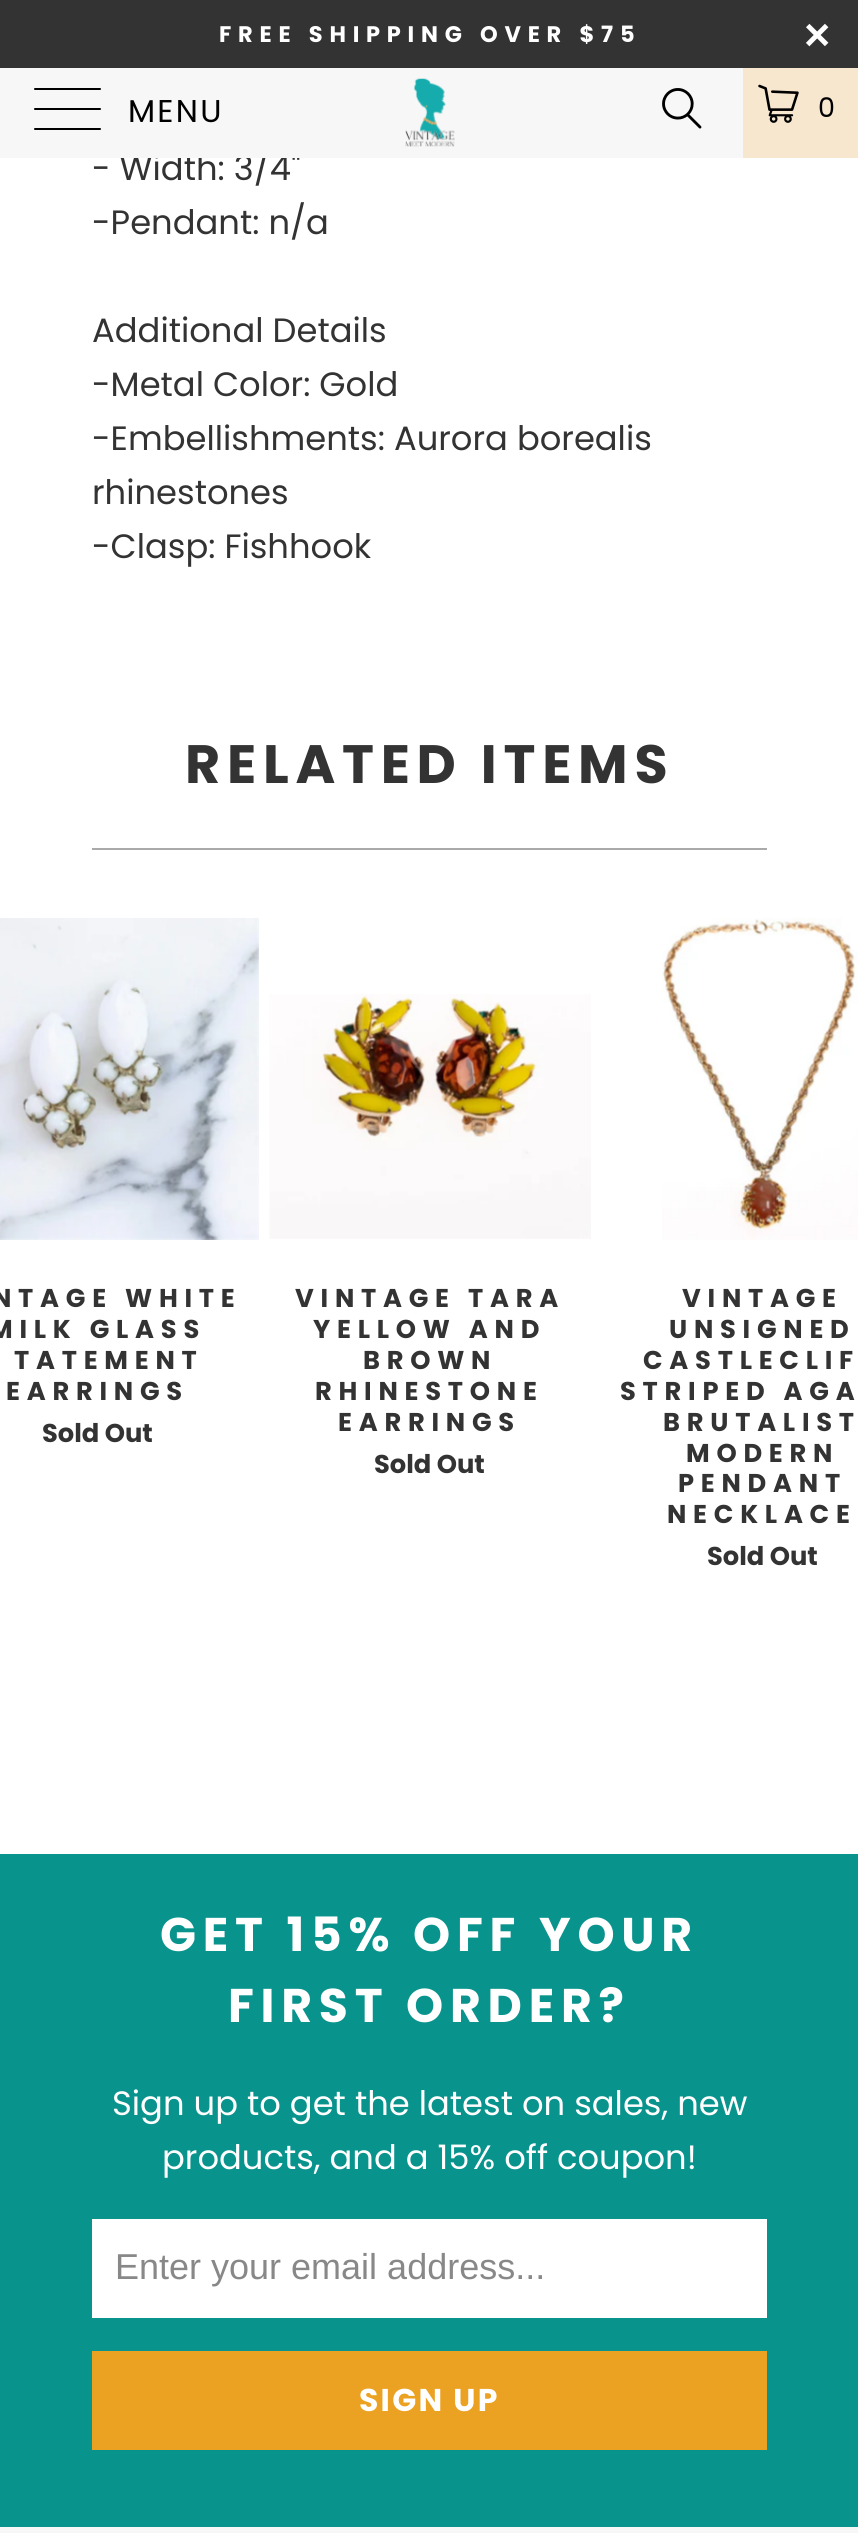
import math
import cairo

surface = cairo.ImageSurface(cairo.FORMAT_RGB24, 858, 2533)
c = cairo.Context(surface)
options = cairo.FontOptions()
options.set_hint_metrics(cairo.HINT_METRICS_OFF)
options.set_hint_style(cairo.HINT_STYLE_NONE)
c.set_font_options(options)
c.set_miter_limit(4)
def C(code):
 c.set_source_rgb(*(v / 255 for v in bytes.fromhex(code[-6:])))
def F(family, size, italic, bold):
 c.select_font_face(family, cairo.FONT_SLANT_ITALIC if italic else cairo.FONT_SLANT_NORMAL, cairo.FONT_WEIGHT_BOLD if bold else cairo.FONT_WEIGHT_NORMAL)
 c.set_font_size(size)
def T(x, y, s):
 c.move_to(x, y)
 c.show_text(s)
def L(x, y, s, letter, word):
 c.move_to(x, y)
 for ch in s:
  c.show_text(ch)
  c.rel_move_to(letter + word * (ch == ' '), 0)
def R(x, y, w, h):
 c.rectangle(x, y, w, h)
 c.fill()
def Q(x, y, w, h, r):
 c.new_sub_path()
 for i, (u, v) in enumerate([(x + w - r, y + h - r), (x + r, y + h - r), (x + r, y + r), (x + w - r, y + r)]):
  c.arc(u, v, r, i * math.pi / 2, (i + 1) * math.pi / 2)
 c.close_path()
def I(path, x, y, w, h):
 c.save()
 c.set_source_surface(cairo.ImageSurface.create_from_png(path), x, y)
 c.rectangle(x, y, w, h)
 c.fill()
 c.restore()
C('ffffff')
c.paint()
C('333333')
R(0,0,858,68)
F('Poppins',22.5,0,1)
C('ffffff')
L(219,42,'FREE SHIPPING OVER $75',6.75,0)
F('Liberation Sans',45,0,1)
L(804,50,'×',6.75,0)
F('Poppins',33.75,0,0)
C('333333')
T(92,180,'- Width: 3/4"')
C('f7f7f7')
R(0,68,743,90)
C('000000')
Q(34,88,67,2,1)
c.fill()
Q(34,108,67,2,1)
c.fill()
Q(34,128,67,2,1)
c.fill()
F('Poppins',31.5,0,0)
L(128,122,'MENU',2.25,0)
I('1.png',405,78,50,69)
I('2.png',662,88,40,41)
C('f7e7ce')
R(743,68,115,90)
I('3.png',758,84,41,39)
F('Poppins',27,0,0)
C('000000')
L(818,117,'0',2.25,0)
F('Poppins',33.75,0,0)
C('333333')
T(92,234,'-Pendant: n/a')
T(92,342,'Additional Details')
T(92,396,'-Metal Color: Gold')
T(92,450,'-Embellishments: Aurora borealis')
T(92,504,'rhinestones')
T(92,558,'-Clasp: Fishhook')
F('Poppins',54,0,1)
L(185,783,'RELATED ITEMS',6.75,0)
C('aaaaaa')
R(92,848,675,2)
I('4.png',0,918,259,322)
F('Poppins',25.75,0,1)
C('333333')
L(-8,1307,'NTAGE WHITE',6.75,0)
L(-11,1338,'MILK GLASS',6.75,0)
L(14,1369,'TATEMENT',6.75,0)
L(6,1400,'EARRINGS',6.75,0)
T(42,1442,'Sold Out')
I('5.png',269,994,322,245)
L(295,1307,'VINTAGE TARA',6.75,0)
L(313,1338,'YELLOW AND',6.75,0)
L(363,1369,'BROWN',6.75,0)
L(315,1400,'RHINESTONE',6.75,0)
L(338,1431,'EARRINGS',6.75,0)
T(374,1473,'Sold Out')
I('6.png',662,918,196,322)
L(682,1307,'VINTAGE',6.75,0)
L(669,1338,'UNSIGNED',6.75,0)
L(643,1369,'CASTLECLIF',6.75,0)
L(620,1400,'STRIPED AGA',6.75,0)
L(663,1431,'BRUTALIST',6.75,0)
L(686,1462,'MODERN',6.75,0)
L(678,1492,'PENDANT',6.75,0)
L(667,1523,'NECKLACE',6.75,0)
T(707,1565,'Sold Out')
C('09938d')
R(0,1854,858,673)
F('Poppins',47.25,0,1)
C('ffffff')
L(160,1951,'GET 15% OFF YOUR',6.75,0)
L(228,2022,'FIRST ORDER?',6.75,0)
F('Poppins',33.75,0,0)
T(112,2115,'Sign up to get the latest on sales, new')
T(162,2169,'products, and a 15% off coupon!')
R(92,2219,675,99)
F('Liberation Sans',36,0,0)
C('888888')
T(115,2279,'Enter your email address...')
C('eba222')
R(92,2351,675,99)
F('Poppins',31.5,0,1)
C('ffffff')
L(359,2411,'SIGN UP',2.25,0)
C('f7f7f7')
R(0,2527,858,6)
surface.write_to_png('o.png')
